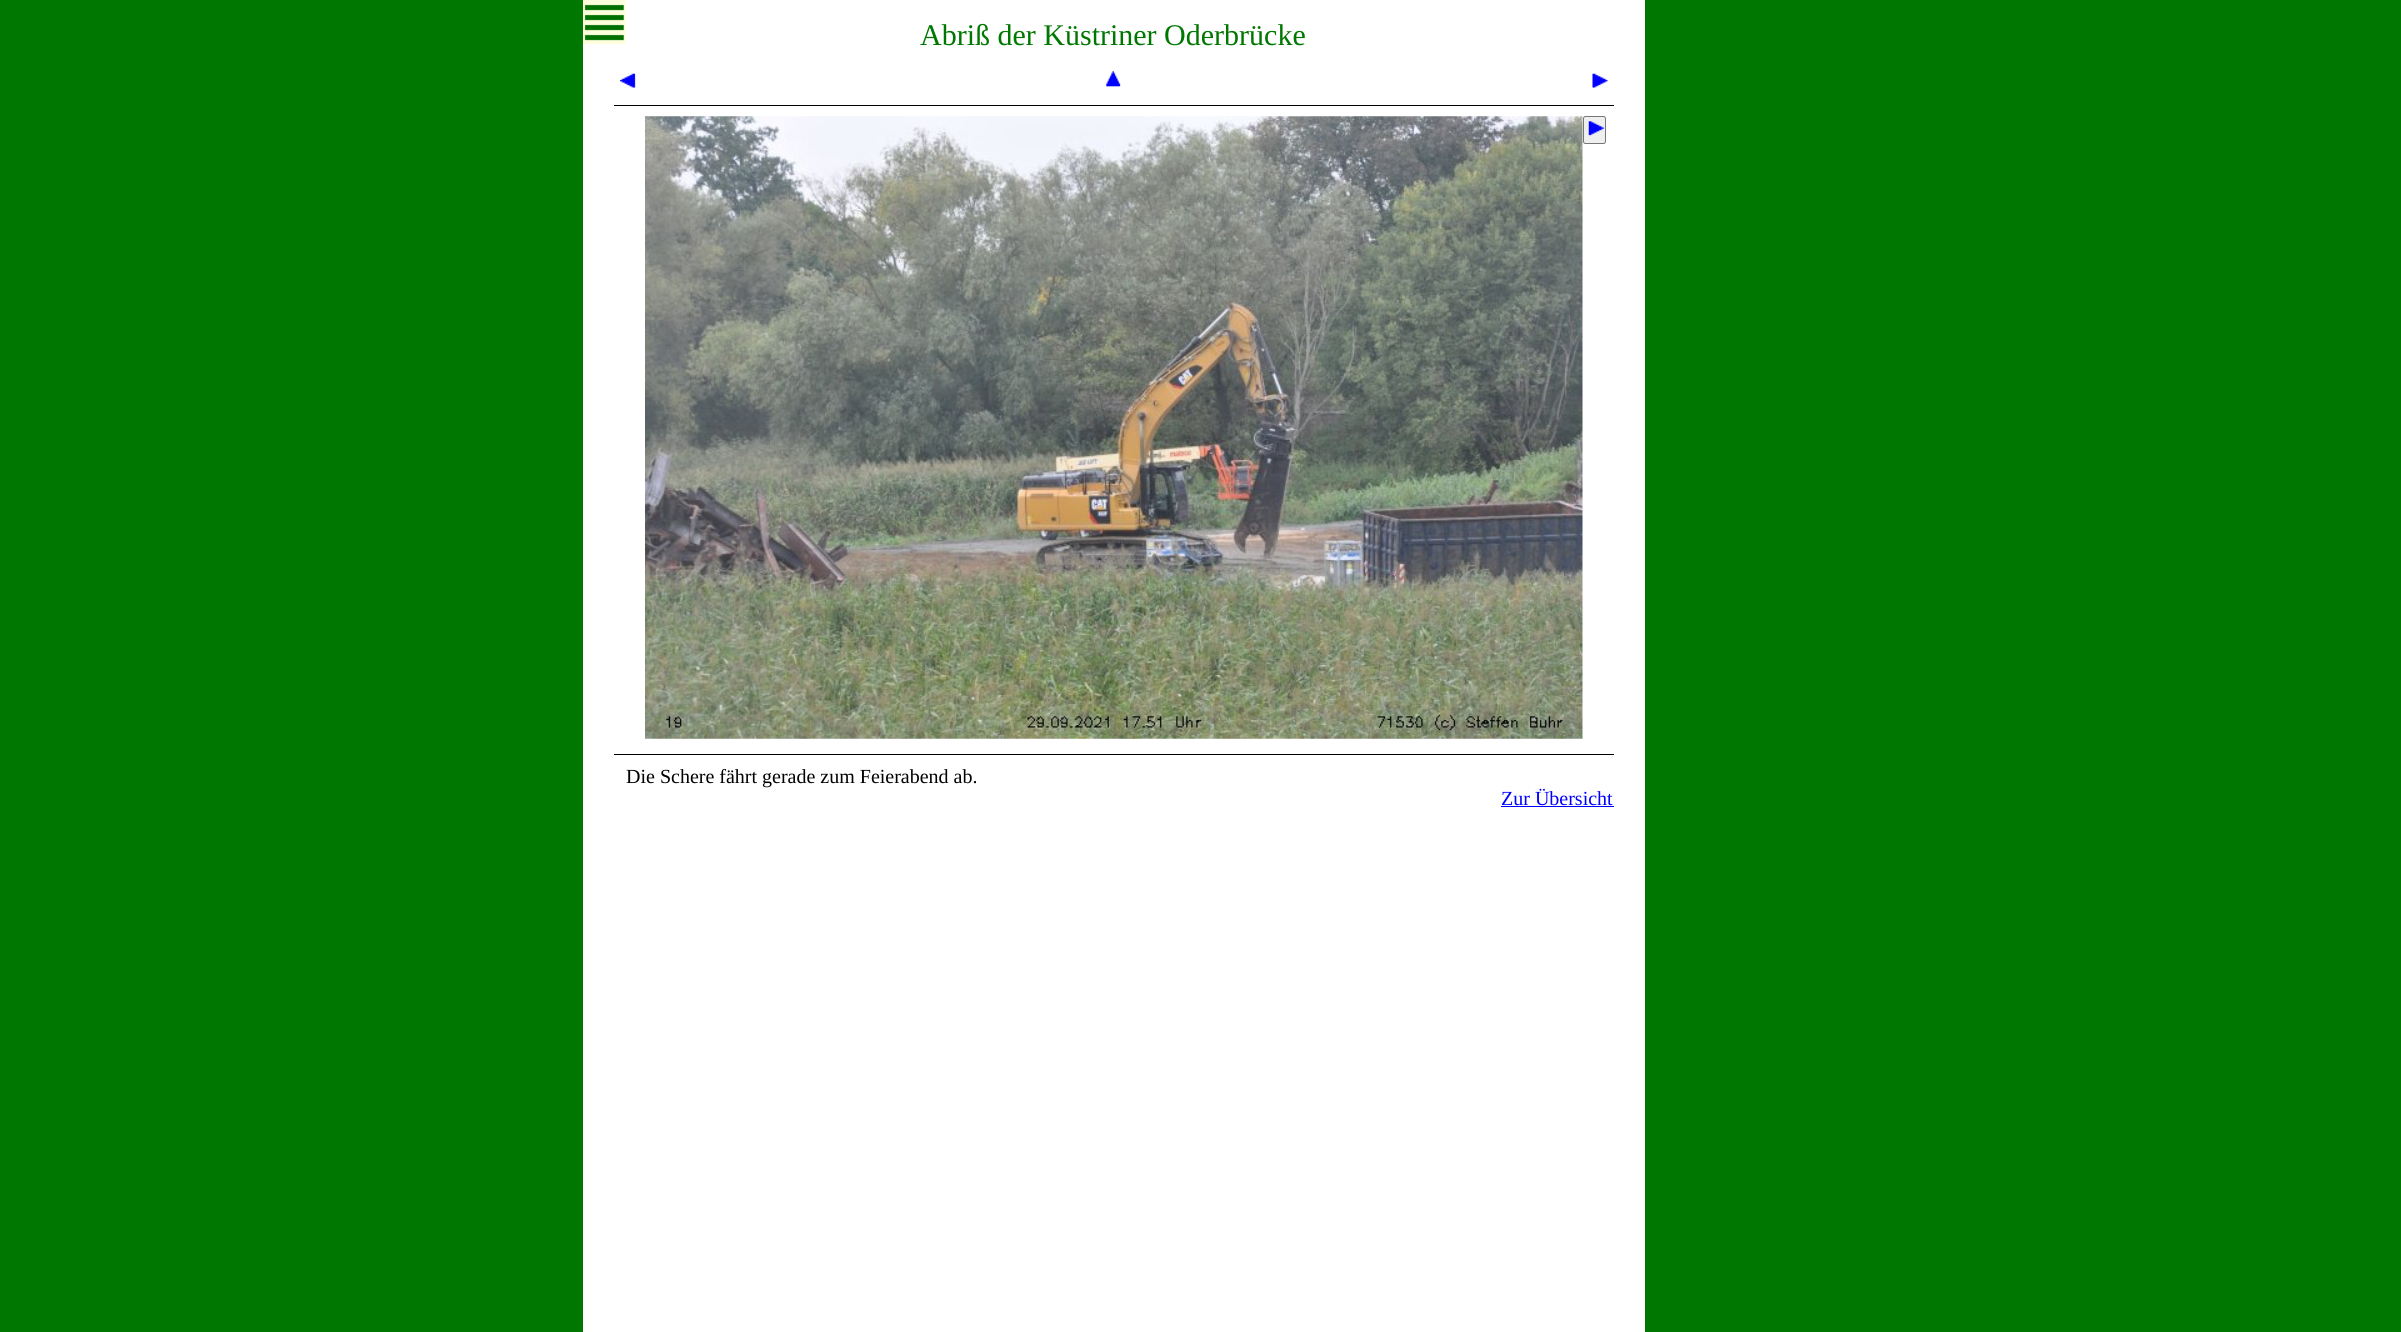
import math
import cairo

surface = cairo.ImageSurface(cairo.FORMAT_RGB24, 2401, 1332)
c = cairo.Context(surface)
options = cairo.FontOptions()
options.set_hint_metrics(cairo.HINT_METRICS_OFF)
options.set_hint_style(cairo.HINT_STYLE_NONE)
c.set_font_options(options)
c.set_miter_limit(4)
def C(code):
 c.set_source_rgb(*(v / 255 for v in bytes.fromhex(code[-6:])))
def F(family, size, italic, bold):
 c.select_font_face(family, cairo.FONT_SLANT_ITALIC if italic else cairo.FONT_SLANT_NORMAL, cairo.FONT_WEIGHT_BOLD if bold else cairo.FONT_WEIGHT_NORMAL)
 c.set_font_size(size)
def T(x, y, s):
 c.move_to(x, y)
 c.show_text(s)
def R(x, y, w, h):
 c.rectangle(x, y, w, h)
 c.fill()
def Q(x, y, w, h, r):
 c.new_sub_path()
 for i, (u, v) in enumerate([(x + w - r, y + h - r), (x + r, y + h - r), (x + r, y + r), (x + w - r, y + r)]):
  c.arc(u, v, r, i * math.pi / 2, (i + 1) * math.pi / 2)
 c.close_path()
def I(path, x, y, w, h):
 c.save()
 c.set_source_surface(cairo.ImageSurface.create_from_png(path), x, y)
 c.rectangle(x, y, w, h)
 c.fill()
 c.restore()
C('007700')
c.paint()
C('ffffff')
R(583,0,1062,1332)
C('ffffdd')
R(583,0,43,44)
I('1.png',584,4,40,37)
F('Liberation Serif',30,0,0)
C('007700')
T(920,45,'Abriß der Küstriner Oderbrücke')
I('2.png',620,73,16,15)
I('3.png',1106,71,15,16)
I('4.png',1592,73,16,15)
C('000000')
R(614,105,1000,1)
I('5.png',645,116,938,623)
C('efefef')
Q(1583.5,116.5,22,27,2)
c.fill_preserve()
C('767676')
c.set_line_width(1)
c.stroke()
I('6.png',1588,121,16,15)
C('000000')
R(614,754,1000,1)
F('Liberation Serif',20,0,0)
T(626,783,'Die Schere fährt gerade zum Feierabend ab.')
C('0000ff')
T(1501,805,'Zur Übersicht')
R(1501,806,113,1)
surface.write_to_png('o.png')
